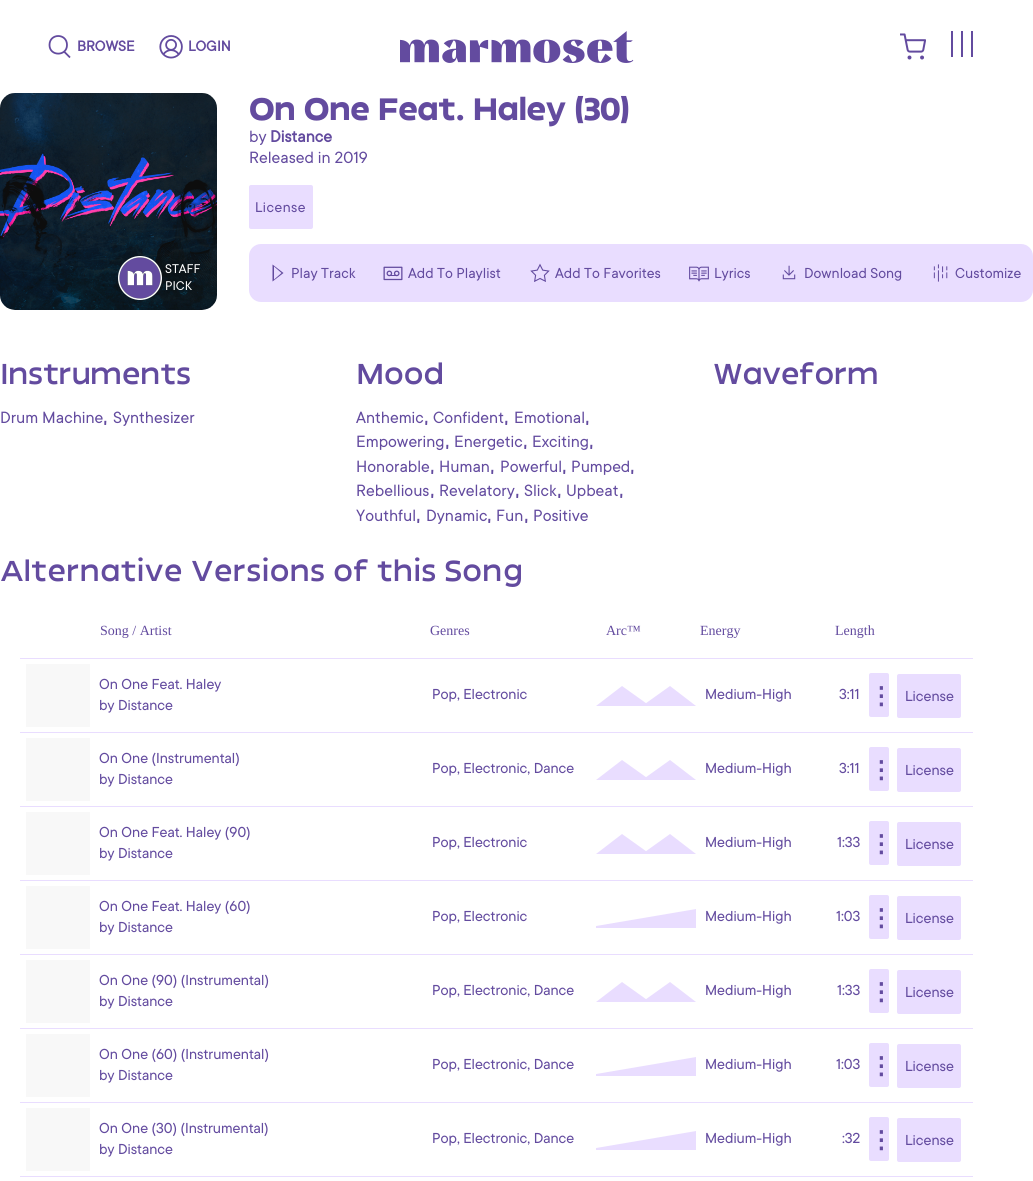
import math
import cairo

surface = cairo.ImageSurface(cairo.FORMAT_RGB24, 1033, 1181)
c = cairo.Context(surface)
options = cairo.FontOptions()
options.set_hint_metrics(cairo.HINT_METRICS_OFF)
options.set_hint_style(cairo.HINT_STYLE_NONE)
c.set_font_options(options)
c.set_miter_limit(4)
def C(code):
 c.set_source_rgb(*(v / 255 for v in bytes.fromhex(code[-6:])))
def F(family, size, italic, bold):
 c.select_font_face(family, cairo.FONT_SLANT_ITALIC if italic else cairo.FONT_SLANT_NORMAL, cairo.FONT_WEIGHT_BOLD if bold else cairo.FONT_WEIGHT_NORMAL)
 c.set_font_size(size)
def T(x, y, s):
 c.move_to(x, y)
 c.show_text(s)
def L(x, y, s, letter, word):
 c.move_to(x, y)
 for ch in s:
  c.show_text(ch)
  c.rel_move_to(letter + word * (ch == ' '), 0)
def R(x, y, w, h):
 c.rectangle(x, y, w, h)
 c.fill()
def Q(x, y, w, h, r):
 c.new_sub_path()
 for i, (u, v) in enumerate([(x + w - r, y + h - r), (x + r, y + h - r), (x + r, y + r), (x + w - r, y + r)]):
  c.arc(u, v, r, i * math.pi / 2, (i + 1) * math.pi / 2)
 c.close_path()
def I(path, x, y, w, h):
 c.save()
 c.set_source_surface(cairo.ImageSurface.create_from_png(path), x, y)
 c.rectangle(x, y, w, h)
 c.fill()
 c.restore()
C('ffffff')
c.paint()
c.new_path()
c.move_to(64,51.5)
c.line_to(70,57.5)
c.move_to(67,45)
c.curve_to(67,56.5,49.5,56.5,49.5,45)
c.curve_to(49.5,33,67,33,67,45)
c.close_path()
C('634b9f')
c.set_line_width(1.8)
c.stroke()
F('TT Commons',16,0,1)
T(77,51,'BROWSE')
I('1.png',159,35,24,24)
T(188,51,'LOGIN')
I('2.png',400,31,234,32)
I('3.png',900,33,26,27)
R(951,31,2,26)
R(961,31,2,26)
R(971,31,2,26)
I('4.png',0,93,217,217)
I('5.png',118,256,44,44)
F('TT Commons',14,0,0)
C('ffffff')
T(165,273,'STAFF')
T(165,290,'PICK')
F('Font',28,0,1)
C('634b9f')
L(249,120,'On One Feat. Haley (30)',-.6,0)
F('TT Commons',18,0,0)
T(249,142,'by')
F('TT Commons',18,0,1)
T(270,142,'Distance')
F('TT Commons',18,0,0)
T(249,163,'Released in 2019')
C('e9ddff')
Q(249,185,64,44,2)
c.fill()
F('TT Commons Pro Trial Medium',14,0,0)
C('634b9f')
L(255,212,'License',.5,0)
C('e9ddff')
Q(249,244,784,58,12)
c.fill()
C('634b9f')
c.new_path()
c.move_to(274,266.5)
c.line_to(281.5,273)
c.line_to(274,279.5)
c.close_path()
c.move_to(272.5,281.5)
c.line_to(283.5,273)
c.line_to(272.5,264.5)
c.close_path()
c.fill()
F('TT Commons',16,0,0)
T(291,278,'Play Track')
I('6.png',383,266,20,15)
T(408,278,'Add To Playlist')
I('7.png',530,263,20,19)
T(555,278,'Add To Favorites')
I('8.png',689,266,20,16)
T(714,278,'Lyrics')
I('9.png',782,265,14,15)
T(804,278,'Download Song')
I('10.png',933,264,15,18)
T(955,278,'Customize')
F('Font',26,0,0)
L(0,384,'Instruments',-.5,0)
F('TT Commons',18,0,0)
T(0,423,'Drum Machine')
F('Font',16,0,0)
T(103,423,',')
F('TT Commons',18,0,0)
T(113,423,'Synthesizer')
F('Font',26,0,0)
L(356,384,'Mood',-.5,0)
F('TT Commons',18,0,0)
T(356,423,'Anthemic')
F('Font',16,0,0)
T(424,423,',')
F('TT Commons',18,0,0)
T(433,423,'Confident')
F('Font',16,0,0)
T(504,423,',')
F('TT Commons',18,0,0)
T(514,423,'Emotional')
F('Font',16,0,0)
T(585,423,',')
F('TT Commons',18,0,0)
T(356,447,'Empowering')
F('Font',16,0,0)
T(445,447,',')
F('TT Commons',18,0,0)
T(454,447,'Energetic')
F('Font',16,0,0)
T(523,447,',')
F('TT Commons',18,0,0)
T(532,447,'Exciting')
F('Font',16,0,0)
T(589,447,',')
F('TT Commons',18,0,0)
T(356,472,'Honorable')
F('Font',16,0,0)
T(430,472,',')
F('TT Commons',18,0,0)
T(439,472,'Human')
F('Font',16,0,0)
T(490,472,',')
F('TT Commons',18,0,0)
T(500,472,'Powerful')
F('Font',16,0,0)
T(562,472,',')
F('TT Commons',18,0,0)
T(571,472,'Pumped')
F('Font',16,0,0)
T(630,472,',')
F('TT Commons',18,0,0)
T(356,496,'Rebellious')
F('Font',16,0,0)
T(430,496,',')
F('TT Commons',18,0,0)
T(439,496,'Revelatory')
F('Font',16,0,0)
T(515,496,',')
F('TT Commons',18,0,0)
T(524,496,'Slick')
F('Font',16,0,0)
T(557,496,',')
F('TT Commons',18,0,0)
T(566,496,'Upbeat')
F('Font',16,0,0)
T(619,496,',')
F('TT Commons',18,0,0)
T(356,521,'Youthful')
F('Font',16,0,0)
T(416,521,',')
F('TT Commons',18,0,0)
T(426,521,'Dynamic')
F('Font',16,0,0)
T(487,521,',')
F('TT Commons',18,0,0)
T(496,521,'Fun')
F('Font',16,0,0)
T(524,521,',')
F('TT Commons',18,0,0)
T(533,521,'Positive')
F('Font',26,0,0)
L(713,384,'Waveform',-.5,0)
T(0,581,'Alternative Versions of this Song')
C('e9ddff')
R(20,658,953,1)
F('Liberation Serif',14,0,0)
C('634b9f')
T(100,635,'Song / Artist')
T(430,635,'Genres')
T(606,635,'Arc™')
T(700,635,'Energy')
T(835,635,'Length')
C('e9ddff')
R(20,732,953,1)
C('f8f8f8')
R(26,664,64,63)
F('TT Commons Pro Trial Medium',14.4,0,0)
C('634b9f')
T(99,689,'On One Feat. Haley')
T(99,710,'by Distance')
T(432,699,'Pop, Electronic')
C('e9ddff')
c.new_path()
c.move_to(622,686)
c.line_to(596,706)
c.line_to(650,706)
c.close_path()
c.fill()
c.new_path()
c.move_to(670,686)
c.line_to(696,706)
c.line_to(642,706)
c.close_path()
c.fill()
C('634b9f')
T(705,699,'Medium-High')
T(839,699,'3:11')
C('e9ddff')
Q(869,673,20,44,2)
c.fill()
F('DejaVu Sans',24,0,1)
C('634b9f')
T(869,704,'⋮')
C('e9ddff')
Q(897,674,64,44,2)
c.fill()
F('TT Commons Pro Trial Medium',14.4,0,0)
C('634b9f')
T(905,701,'License')
C('e9ddff')
R(20,806,953,1)
C('f8f8f8')
R(26,738,64,63)
C('634b9f')
T(99,763,'On One (Instrumental)')
T(99,784,'by Distance')
T(432,773,'Pop, Electronic, Dance')
C('e9ddff')
c.new_path()
c.move_to(622,760)
c.line_to(596,780)
c.line_to(650,780)
c.close_path()
c.fill()
c.new_path()
c.move_to(670,760)
c.line_to(696,780)
c.line_to(642,780)
c.close_path()
c.fill()
C('634b9f')
T(705,773,'Medium-High')
T(839,773,'3:11')
C('e9ddff')
Q(869,747,20,44,2)
c.fill()
F('DejaVu Sans',24,0,1)
C('634b9f')
T(869,778,'⋮')
C('e9ddff')
Q(897,748,64,44,2)
c.fill()
F('TT Commons Pro Trial Medium',14.4,0,0)
C('634b9f')
T(905,775,'License')
C('e9ddff')
R(20,880,953,1)
C('f8f8f8')
R(26,812,64,63)
C('634b9f')
T(99,837,'On One Feat. Haley (90)')
T(99,858,'by Distance')
T(432,847,'Pop, Electronic')
C('e9ddff')
c.new_path()
c.move_to(622,834)
c.line_to(596,854)
c.line_to(650,854)
c.close_path()
c.fill()
c.new_path()
c.move_to(670,834)
c.line_to(696,854)
c.line_to(642,854)
c.close_path()
c.fill()
C('634b9f')
T(705,847,'Medium-High')
T(837,847,'1:33')
C('e9ddff')
Q(869,821,20,44,2)
c.fill()
F('DejaVu Sans',24,0,1)
C('634b9f')
T(869,852,'⋮')
C('e9ddff')
Q(897,822,64,44,2)
c.fill()
F('TT Commons Pro Trial Medium',14.4,0,0)
C('634b9f')
T(905,849,'License')
C('e9ddff')
R(20,954,953,1)
C('f8f8f8')
R(26,886,64,63)
C('634b9f')
T(99,911,'On One Feat. Haley (60)')
T(99,932,'by Distance')
T(432,921,'Pop, Electronic')
C('e9ddff')
c.new_path()
c.move_to(696,909)
c.line_to(596,926)
c.line_to(596,928)
c.line_to(696,928)
c.fill()
C('634b9f')
T(705,921,'Medium-High')
T(836,921,'1:03')
C('e9ddff')
Q(869,895,20,44,2)
c.fill()
F('DejaVu Sans',24,0,1)
C('634b9f')
T(869,926,'⋮')
C('e9ddff')
Q(897,896,64,44,2)
c.fill()
F('TT Commons Pro Trial Medium',14.4,0,0)
C('634b9f')
T(905,923,'License')
C('e9ddff')
R(20,1028,953,1)
C('f8f8f8')
R(26,960,64,63)
C('634b9f')
T(99,985,'On One (90) (Instrumental)')
T(99,1006,'by Distance')
T(432,995,'Pop, Electronic, Dance')
C('e9ddff')
c.new_path()
c.move_to(622,982)
c.line_to(596,1002)
c.line_to(650,1002)
c.close_path()
c.fill()
c.new_path()
c.move_to(670,982)
c.line_to(696,1002)
c.line_to(642,1002)
c.close_path()
c.fill()
C('634b9f')
T(705,995,'Medium-High')
T(837,995,'1:33')
C('e9ddff')
Q(869,969,20,44,2)
c.fill()
F('DejaVu Sans',24,0,1)
C('634b9f')
T(869,1000,'⋮')
C('e9ddff')
Q(897,970,64,44,2)
c.fill()
F('TT Commons Pro Trial Medium',14.4,0,0)
C('634b9f')
T(905,997,'License')
C('e9ddff')
R(20,1102,953,1)
C('f8f8f8')
R(26,1034,64,63)
C('634b9f')
T(99,1059,'On One (60) (Instrumental)')
T(99,1080,'by Distance')
T(432,1069,'Pop, Electronic, Dance')
C('e9ddff')
c.new_path()
c.move_to(696,1057)
c.line_to(596,1074)
c.line_to(596,1076)
c.line_to(696,1076)
c.fill()
C('634b9f')
T(705,1069,'Medium-High')
T(836,1069,'1:03')
C('e9ddff')
Q(869,1043,20,44,2)
c.fill()
F('DejaVu Sans',24,0,1)
C('634b9f')
T(869,1074,'⋮')
C('e9ddff')
Q(897,1044,64,44,2)
c.fill()
F('TT Commons Pro Trial Medium',14.4,0,0)
C('634b9f')
T(905,1071,'License')
C('e9ddff')
R(20,1176,953,1)
C('f8f8f8')
R(26,1108,64,63)
C('634b9f')
T(99,1133,'On One (30) (Instrumental)')
T(99,1154,'by Distance')
T(432,1143,'Pop, Electronic, Dance')
C('e9ddff')
c.new_path()
c.move_to(696,1131)
c.line_to(596,1148)
c.line_to(596,1150)
c.line_to(696,1150)
c.fill()
C('634b9f')
T(705,1143,'Medium-High')
T(842,1143,':32')
C('e9ddff')
Q(869,1117,20,44,2)
c.fill()
F('DejaVu Sans',24,0,1)
C('634b9f')
T(869,1148,'⋮')
C('e9ddff')
Q(897,1118,64,44,2)
c.fill()
F('TT Commons Pro Trial Medium',14.4,0,0)
C('634b9f')
T(905,1145,'License')
surface.write_to_png('o.png')
